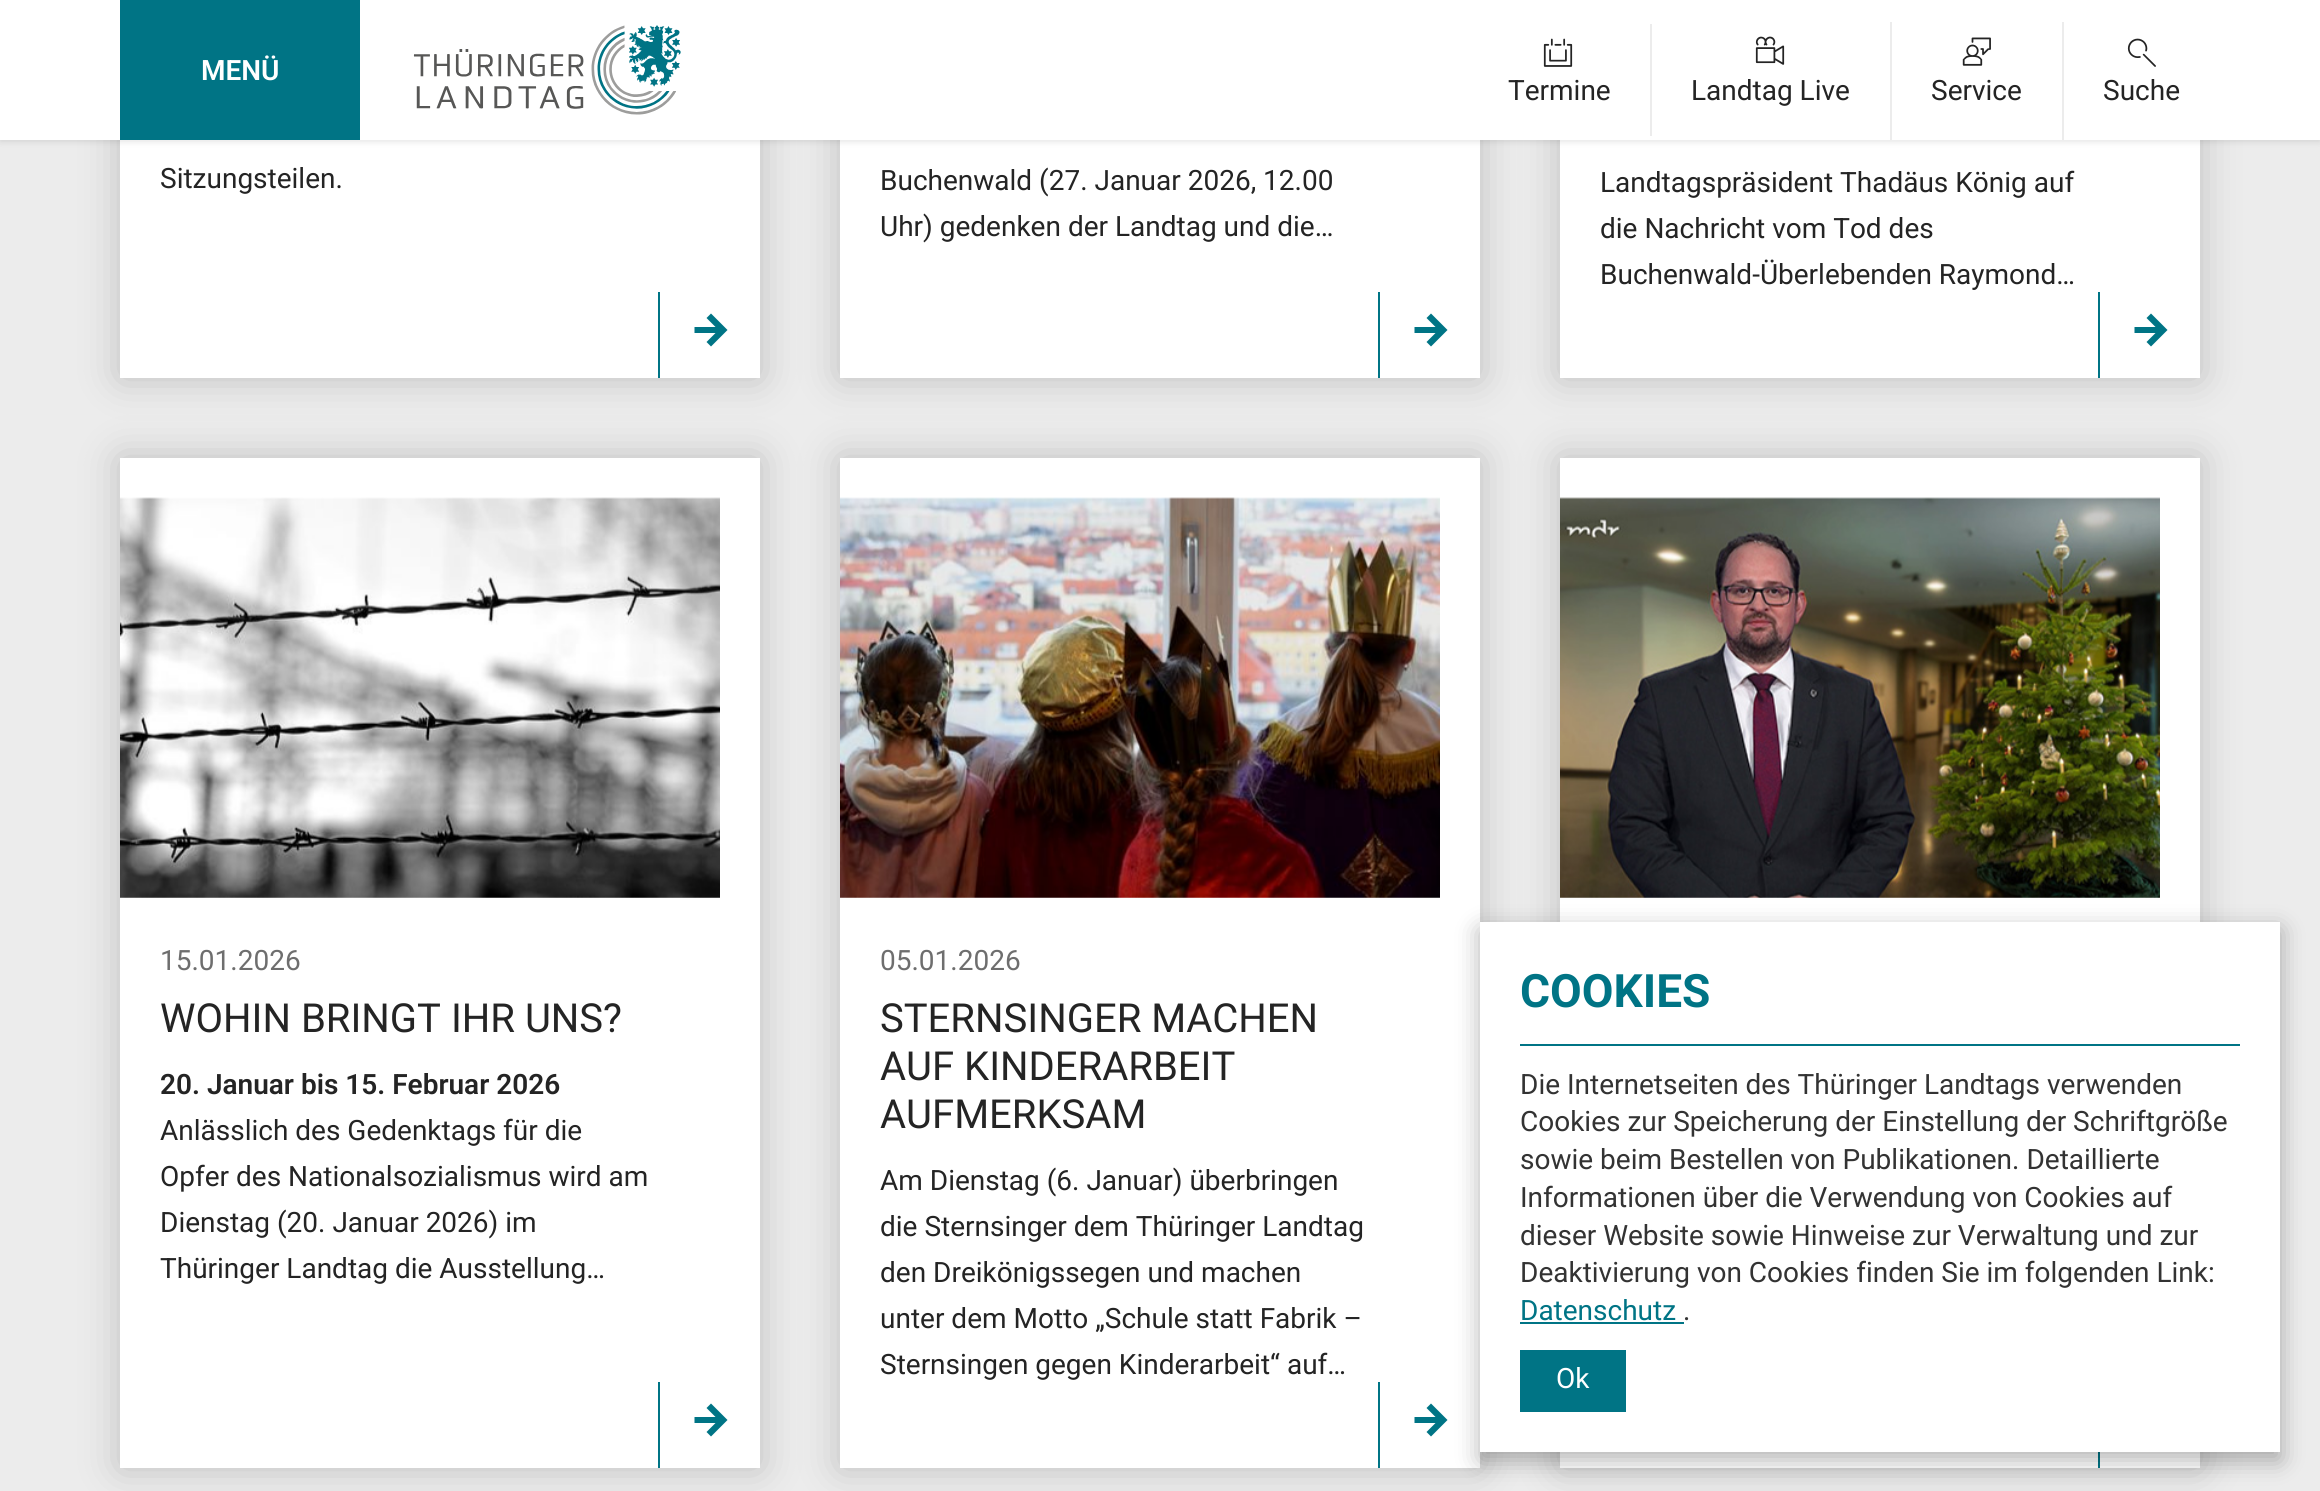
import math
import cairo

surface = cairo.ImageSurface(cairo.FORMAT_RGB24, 2320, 1491)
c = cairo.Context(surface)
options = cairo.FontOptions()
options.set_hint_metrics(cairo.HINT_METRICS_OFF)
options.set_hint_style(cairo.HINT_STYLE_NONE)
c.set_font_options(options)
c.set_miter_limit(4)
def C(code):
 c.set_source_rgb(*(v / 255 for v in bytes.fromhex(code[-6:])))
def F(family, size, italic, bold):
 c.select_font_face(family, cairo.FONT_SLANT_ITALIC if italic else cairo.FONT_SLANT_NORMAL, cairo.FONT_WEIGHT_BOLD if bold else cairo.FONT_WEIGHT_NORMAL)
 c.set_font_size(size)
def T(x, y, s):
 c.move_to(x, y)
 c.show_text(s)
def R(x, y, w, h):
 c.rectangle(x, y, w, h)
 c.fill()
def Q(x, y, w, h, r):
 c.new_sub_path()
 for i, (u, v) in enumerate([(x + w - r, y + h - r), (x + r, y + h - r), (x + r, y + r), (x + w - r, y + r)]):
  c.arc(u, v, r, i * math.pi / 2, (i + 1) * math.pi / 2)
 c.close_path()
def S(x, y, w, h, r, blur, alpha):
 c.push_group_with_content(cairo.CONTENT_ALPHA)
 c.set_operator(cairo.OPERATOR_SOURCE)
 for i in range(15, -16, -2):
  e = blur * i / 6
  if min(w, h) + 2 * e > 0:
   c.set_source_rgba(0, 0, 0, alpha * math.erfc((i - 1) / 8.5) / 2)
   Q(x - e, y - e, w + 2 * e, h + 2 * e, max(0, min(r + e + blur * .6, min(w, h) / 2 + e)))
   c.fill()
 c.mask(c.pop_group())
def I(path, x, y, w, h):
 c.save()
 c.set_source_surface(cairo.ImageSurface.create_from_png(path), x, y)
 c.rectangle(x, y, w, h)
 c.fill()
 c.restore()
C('ececec')
c.paint()
C('000000')
S(120,-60,640,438,0,20,.2)
C('ffffff')
R(120,140,640,238)
C('000000')
S(840,-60,640,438,0,20,.2)
C('ffffff')
R(840,140,640,238)
C('000000')
S(1560,-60,640,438,0,20,.2)
C('ffffff')
R(1560,140,640,238)
C('000000')
S(0,2,2320,140,0,3,.1)
C('ffffff')
R(0,0,2320,140)
C('007485')
R(120,0,240,140)
F('Roboto SemiBold',28,0,0)
C('ffffff')
T(201,80,'MENÜ')
I('1.png',413,25,268,90)
C('ececec')
R(1650,24,2,112)
I('2.png',1543,38,30,29)
F('Roboto',28,0,0)
C('242424')
T(1508,100,'Termine')
C('ececec')
R(1890,22,2,118)
I('3.png',1755,36,30,29)
C('242424')
T(1691,100,'Landtag Live')
C('ececec')
R(2062,22,2,118)
I('4.png',1962,37,29,29)
C('242424')
T(1931,100,'Service')
I('5.png',2127,38,29,29)
T(2103,100,'Suche')
T(160,188,'Sitzungsteilen.')
C('007485')
R(658,292,2,86)
c.new_path()
c.move_to(711,313.5)
c.line_to(706.5,318)
c.line_to(715.5,327)
c.line_to(694.5,327)
c.line_to(694.5,333)
c.line_to(715.5,333)
c.line_to(706.5,342)
c.line_to(711,346.5)
c.line_to(727.5,330)
c.close_path()
c.fill()
C('242424')
T(880,190,'Buchenwald (27. Januar 2026, 12.00')
T(880,236,'Uhr) gedenken der Landtag und die…')
C('007485')
R(1378,292,2,86)
c.new_path()
c.move_to(1431,313.5)
c.line_to(1426.5,318)
c.line_to(1435.5,327)
c.line_to(1414.5,327)
c.line_to(1414.5,333)
c.line_to(1435.5,333)
c.line_to(1426.5,342)
c.line_to(1431,346.5)
c.line_to(1447.5,330)
c.close_path()
c.fill()
C('242424')
T(1600,192,'Landtagspräsident Thadäus König auf')
T(1600,238,'die Nachricht vom Tod des')
T(1600,284,'Buchenwald-Überlebenden Raymond…')
C('007485')
R(2098,292,2,86)
c.new_path()
c.move_to(2151,313.5)
c.line_to(2146.5,318)
c.line_to(2155.5,327)
c.line_to(2134.5,327)
c.line_to(2134.5,333)
c.line_to(2155.5,333)
c.line_to(2146.5,342)
c.line_to(2151,346.5)
c.line_to(2167.5,330)
c.close_path()
c.fill()
C('000000')
S(120,458,640,1010,0,20,.2)
C('ffffff')
R(120,458,640,1010)
I('6.png',120,497,600,401)
C('6e6e6e')
T(160,970,'15.01.2026')
F('Roboto',40,0,0)
C('242424')
T(160,1032,'WOHIN BRINGT IHR UNS?')
F('Roboto SemiBold',28,0,0)
T(160,1094,'20. Januar bis 15. Februar 2026')
F('Roboto',28,0,0)
T(160,1140,'Anlässlich des Gedenktags für die')
T(160,1186,'Opfer des Nationalsozialismus wird am')
T(160,1232,'Dienstag (20. Januar 2026) im')
T(160,1278,'Thüringer Landtag die Ausstellung…')
C('007485')
R(658,1382,2,86)
c.new_path()
c.move_to(711,1403.5)
c.line_to(706.5,1408)
c.line_to(715.5,1417)
c.line_to(694.5,1417)
c.line_to(694.5,1423)
c.line_to(715.5,1423)
c.line_to(706.5,1432)
c.line_to(711,1436.5)
c.line_to(727.5,1420)
c.close_path()
c.fill()
C('000000')
S(840,458,640,1010,0,20,.2)
C('ffffff')
R(840,458,640,1010)
I('7.png',840,497,600,401)
C('6e6e6e')
T(880,970,'05.01.2026')
F('Roboto',40,0,0)
C('242424')
T(880,1032,'STERNSINGER MACHEN')
T(880,1080,'AUF KINDERARBEIT')
T(880,1128,'AUFMERKSAM')
F('Roboto',28,0,0)
T(880,1190,'Am Dienstag (6. Januar) überbringen')
T(880,1236,'die Sternsinger dem Thüringer Landtag')
T(880,1282,'den Dreikönigssegen und machen')
T(880,1328,'unter dem Motto „Schule statt Fabrik –')
T(880,1374,'Sternsingen gegen Kinderarbeit“ auf…')
C('007485')
R(1378,1382,2,86)
c.new_path()
c.move_to(1431,1403.5)
c.line_to(1426.5,1408)
c.line_to(1435.5,1417)
c.line_to(1414.5,1417)
c.line_to(1414.5,1423)
c.line_to(1435.5,1423)
c.line_to(1426.5,1432)
c.line_to(1431,1436.5)
c.line_to(1447.5,1420)
c.close_path()
c.fill()
C('000000')
S(1560,458,640,1010,0,20,.2)
C('ffffff')
R(1560,458,640,1010)
I('8.png',1560,497,600,401)
C('007485')
R(2098,1452,2,16)
C('000000')
S(1480,930,800,530,0,12,.3)
C('ffffff')
R(1480,922,800,530)
C('007485')
R(1520,1044,720,2)
F('Roboto',46,0,1)
T(1520,1007,'COOKIES')
F('Roboto',28,0,0)
C('333333')
T(1520,1094,'Die Internetseiten des Thüringer Landtags verwenden')
T(1520,1131,'Cookies zur Speicherung der Einstellung der Schriftgröße')
T(1520,1169,'sowie beim Bestellen von Publikationen. Detaillierte')
T(1520,1207,'Informationen über die Verwendung von Cookies auf')
T(1520,1245,'dieser Website sowie Hinweise zur Verwaltung und zur')
T(1520,1282,'Deaktivierung von Cookies finden Sie im folgenden Link:')
C('007485')
T(1520,1320,'Datenschutz')
R(1520,1322,164,2)
C('333333')
T(1683,1320,'.')
C('007485')
R(1520,1350,106,62)
C('ffffff')
T(1556,1388,'Ok')
surface.write_to_png('o.png')
